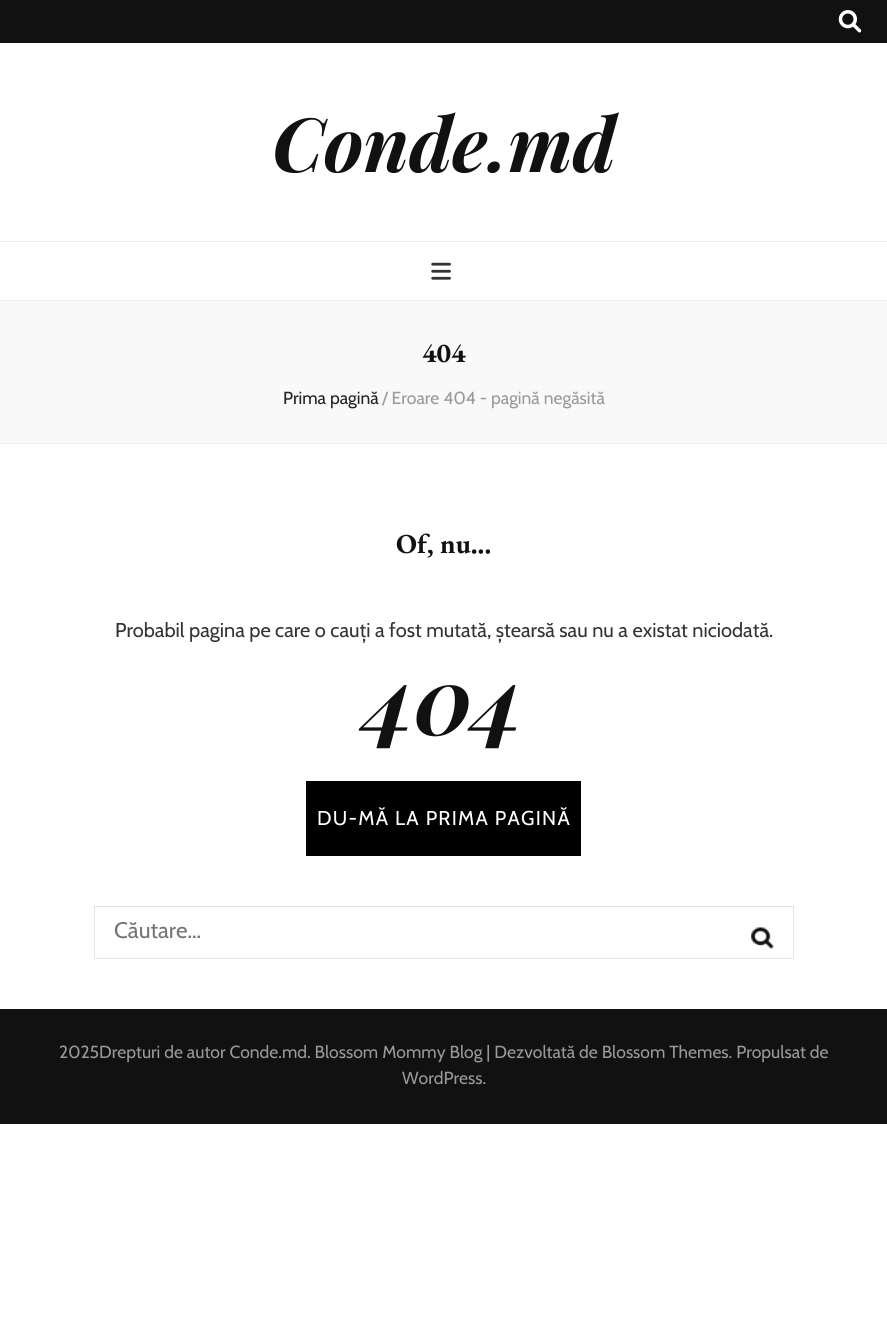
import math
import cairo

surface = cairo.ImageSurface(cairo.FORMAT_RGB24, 887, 1320)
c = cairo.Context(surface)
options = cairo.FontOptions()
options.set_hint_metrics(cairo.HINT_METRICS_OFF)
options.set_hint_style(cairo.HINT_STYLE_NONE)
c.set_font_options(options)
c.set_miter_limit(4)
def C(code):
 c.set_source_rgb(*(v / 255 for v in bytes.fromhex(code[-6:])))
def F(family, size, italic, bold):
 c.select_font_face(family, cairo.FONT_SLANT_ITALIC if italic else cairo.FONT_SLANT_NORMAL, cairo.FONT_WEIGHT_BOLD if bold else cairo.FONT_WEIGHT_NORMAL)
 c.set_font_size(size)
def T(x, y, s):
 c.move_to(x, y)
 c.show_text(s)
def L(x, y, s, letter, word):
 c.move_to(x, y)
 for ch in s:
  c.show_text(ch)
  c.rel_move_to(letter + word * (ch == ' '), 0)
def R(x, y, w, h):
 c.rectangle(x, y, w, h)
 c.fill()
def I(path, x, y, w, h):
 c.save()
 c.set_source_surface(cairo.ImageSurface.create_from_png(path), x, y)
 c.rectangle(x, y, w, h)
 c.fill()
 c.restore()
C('ffffff')
c.paint()
C('111111')
R(0,0,887,43)
I('1.png',838,10,24,23)
F('Playfair Display',75,1,1)
T(272,172,'Conde.md')
C('eeeeee')
R(0,241,887,1)
R(0,300,887,1)
I('2.png',431,262,20,18)
C('f9f9f9')
R(0,301,887,142)
C('eeeeee')
R(0,443,887,1)
F('EB Garamond',27.5,0,1)
C('111111')
T(422,362,'404')
F('Cabin',17.5,0,0)
C('222222')
T(283,404,'Prima pagină')
C('999999')
T(382,404,'/ Eroare 404 - pagină negăsită')
F('EB Garamond',27.5,0,1)
C('111111')
T(396,553,'Of, nu...')
F('Cabin',20,0,0)
C('333333')
T(115,637,'Probabil pagina pe care o cauți a fost mutată, ștearsă sau nu a existat niciodată.')
F('Playfair Display',94,1,1)
C('111111')
T(364,735,'404')
C('000000')
R(306,781,275,75)
F('Cabin',20,0,0)
C('ffffff')
L(317,825,'DU-MĂ LA PRIMA PAGINĂ',1.25,0)
c.rectangle(94.5,906.5,699,52)
C('e5e5e5')
c.set_line_width(1)
c.stroke()
F('Cabin',22.5,0,0)
C('757575')
T(114,938,'Căutare…')
I('3.png',751,927,23,22)
C('111111')
R(0,1009,887,115)
F('Cabin',17.5,0,0)
C('999999')
T(59,1058,'2025Drepturi de autor Conde.md. Blossom Mommy Blog | Dezvoltată de Blossom Themes. Propulsat de')
T(402,1084,'WordPress.')
surface.write_to_png('o.png')
